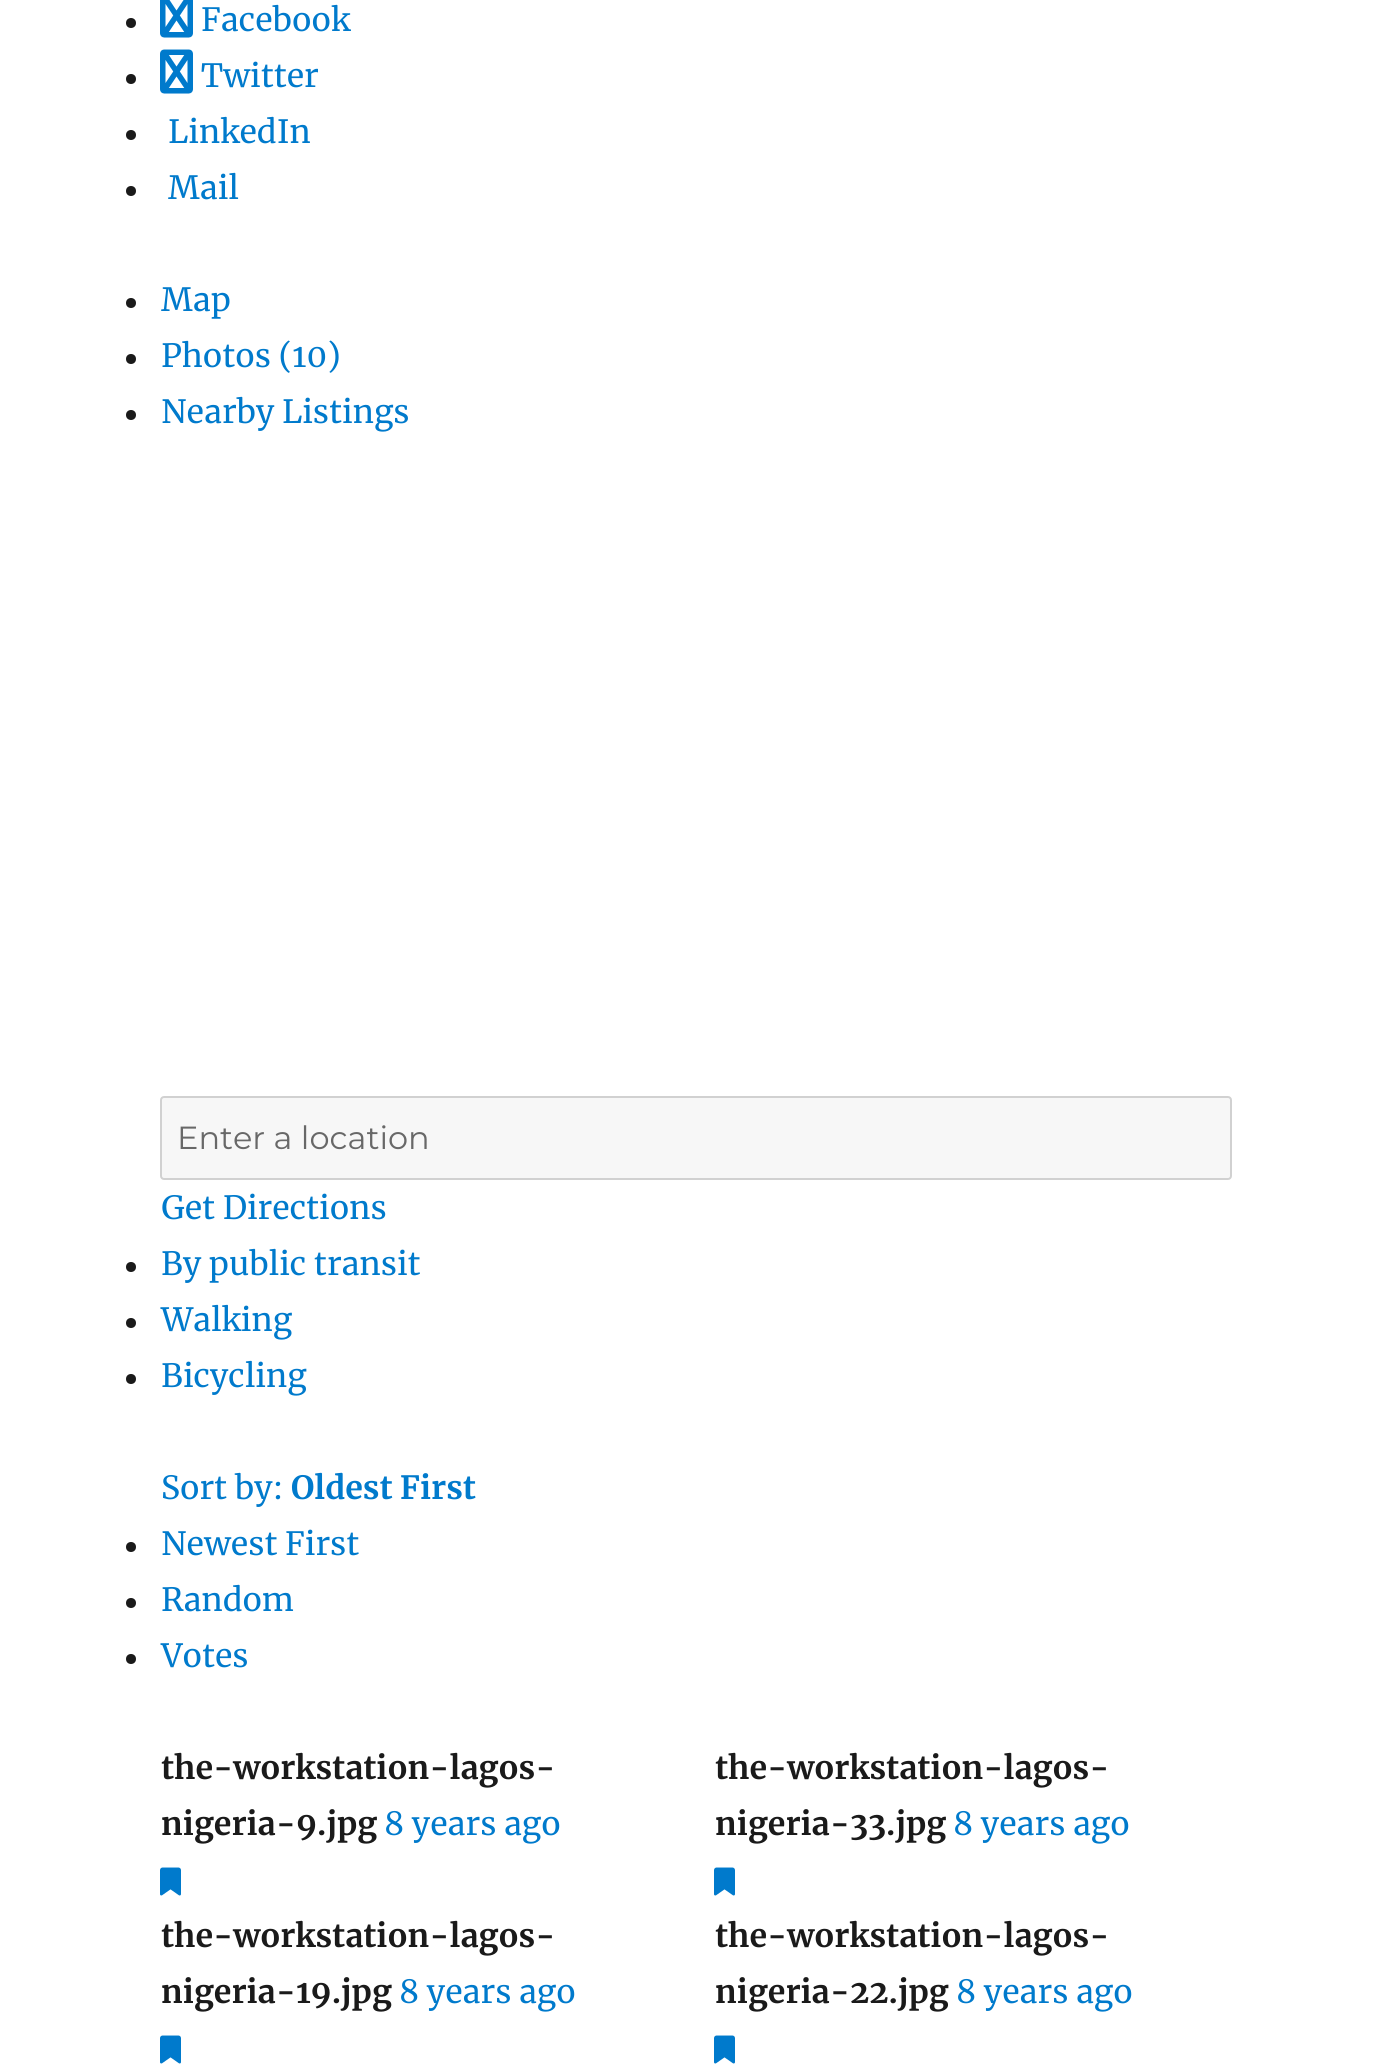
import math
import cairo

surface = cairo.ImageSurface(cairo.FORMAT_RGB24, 1391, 2068)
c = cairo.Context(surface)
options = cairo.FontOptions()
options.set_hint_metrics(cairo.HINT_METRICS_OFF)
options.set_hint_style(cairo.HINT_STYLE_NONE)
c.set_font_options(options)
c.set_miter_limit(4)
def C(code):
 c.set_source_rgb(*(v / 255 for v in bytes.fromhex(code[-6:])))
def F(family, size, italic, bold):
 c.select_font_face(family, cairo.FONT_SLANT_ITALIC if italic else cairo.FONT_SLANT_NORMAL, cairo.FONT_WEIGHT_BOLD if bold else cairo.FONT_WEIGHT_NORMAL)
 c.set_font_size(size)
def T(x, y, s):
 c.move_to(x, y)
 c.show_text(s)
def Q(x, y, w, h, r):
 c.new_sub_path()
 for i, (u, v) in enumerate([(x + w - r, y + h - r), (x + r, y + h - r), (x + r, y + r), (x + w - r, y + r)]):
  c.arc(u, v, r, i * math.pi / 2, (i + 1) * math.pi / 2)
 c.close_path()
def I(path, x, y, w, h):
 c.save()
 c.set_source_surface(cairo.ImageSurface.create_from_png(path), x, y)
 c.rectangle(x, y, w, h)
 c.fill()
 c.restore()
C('ffffff')
c.paint()
C('1a1a1a')
c.arc(131,23,5,0,2 * math.pi)
c.fill()
I('1.png',160,0,33,38)
F('Merriweather',32,0,0)
C('007acc')
T(201,31,'Facebook')
C('1a1a1a')
c.new_path()
c.arc(131,79,5,0,2 * math.pi)
c.fill()
I('2.png',160,49,33,45)
C('007acc')
T(201,87,'Twitter')
C('1a1a1a')
c.new_path()
c.arc(131,135,5,0,2 * math.pi)
c.fill()
C('007acc')
T(168,143,'LinkedIn')
C('1a1a1a')
c.new_path()
c.arc(131,191,5,0,2 * math.pi)
c.fill()
C('007acc')
T(168,199,'Mail')
C('1a1a1a')
c.new_path()
c.arc(131,303,5,0,2 * math.pi)
c.fill()
C('007acc')
T(161,311,'Map')
C('1a1a1a')
c.new_path()
c.arc(131,359,5,0,2 * math.pi)
c.fill()
C('007acc')
T(161,367,'Photos (10)')
C('1a1a1a')
c.new_path()
c.arc(131,415,5,0,2 * math.pi)
c.fill()
C('007acc')
T(161,423,'Nearby Listings')
C('f7f7f7')
Q(161,1097,1070,82,3)
c.fill_preserve()
C('d1d1d1')
c.stroke()
F('Montserrat Thin',32,0,0)
C('686868')
T(177,1149,'Enter a location')
F('Merriweather',32,0,0)
C('007acc')
T(161,1219,'Get Directions')
C('1a1a1a')
c.new_path()
c.arc(131,1267,5,0,2 * math.pi)
c.fill()
C('007acc')
T(161,1275,'By public transit')
C('1a1a1a')
c.new_path()
c.arc(131,1323,5,0,2 * math.pi)
c.fill()
C('007acc')
T(161,1331,'Walking')
C('1a1a1a')
c.new_path()
c.arc(131,1379,5,0,2 * math.pi)
c.fill()
C('007acc')
T(161,1387,'Bicycling')
T(161,1499,'Sort by:')
F('Merriweather',32,0,1)
T(291,1499,'Oldest First')
C('1a1a1a')
c.new_path()
c.arc(131,1547,5,0,2 * math.pi)
c.fill()
F('Merriweather',32,0,0)
C('007acc')
T(161,1555,'Newest First')
C('1a1a1a')
c.new_path()
c.arc(131,1603,5,0,2 * math.pi)
c.fill()
C('007acc')
T(161,1611,'Random')
C('1a1a1a')
c.new_path()
c.arc(131,1659,5,0,2 * math.pi)
c.fill()
C('007acc')
T(161,1667,'Votes')
F('Merriweather',32,0,1)
C('1a1a1a')
T(161,1779,'the-workstation-lagos-')
T(161,1835,'nigeria-9.jpg')
F('Merriweather',32,0,0)
C('007acc')
T(384,1835,'8 years ago')
I('3.png',160,1867,21,29)
F('Merriweather',32,0,1)
C('1a1a1a')
T(715,1779,'the-workstation-lagos-')
T(715,1835,'nigeria-33.jpg')
F('Merriweather',32,0,0)
C('007acc')
T(953,1835,'8 years ago')
I('3.png',714,1867,21,29)
F('Merriweather',32,0,1)
C('1a1a1a')
T(161,1947,'the-workstation-lagos-')
T(161,2003,'nigeria-19.jpg')
F('Merriweather',32,0,0)
C('007acc')
T(399,2003,'8 years ago')
I('3.png',160,2035,21,29)
F('Merriweather',32,0,1)
C('1a1a1a')
T(715,1947,'the-workstation-lagos-')
T(715,2003,'nigeria-22.jpg')
F('Merriweather',32,0,0)
C('007acc')
T(956,2003,'8 years ago')
I('3.png',714,2035,21,29)
surface.write_to_png('o.png')
